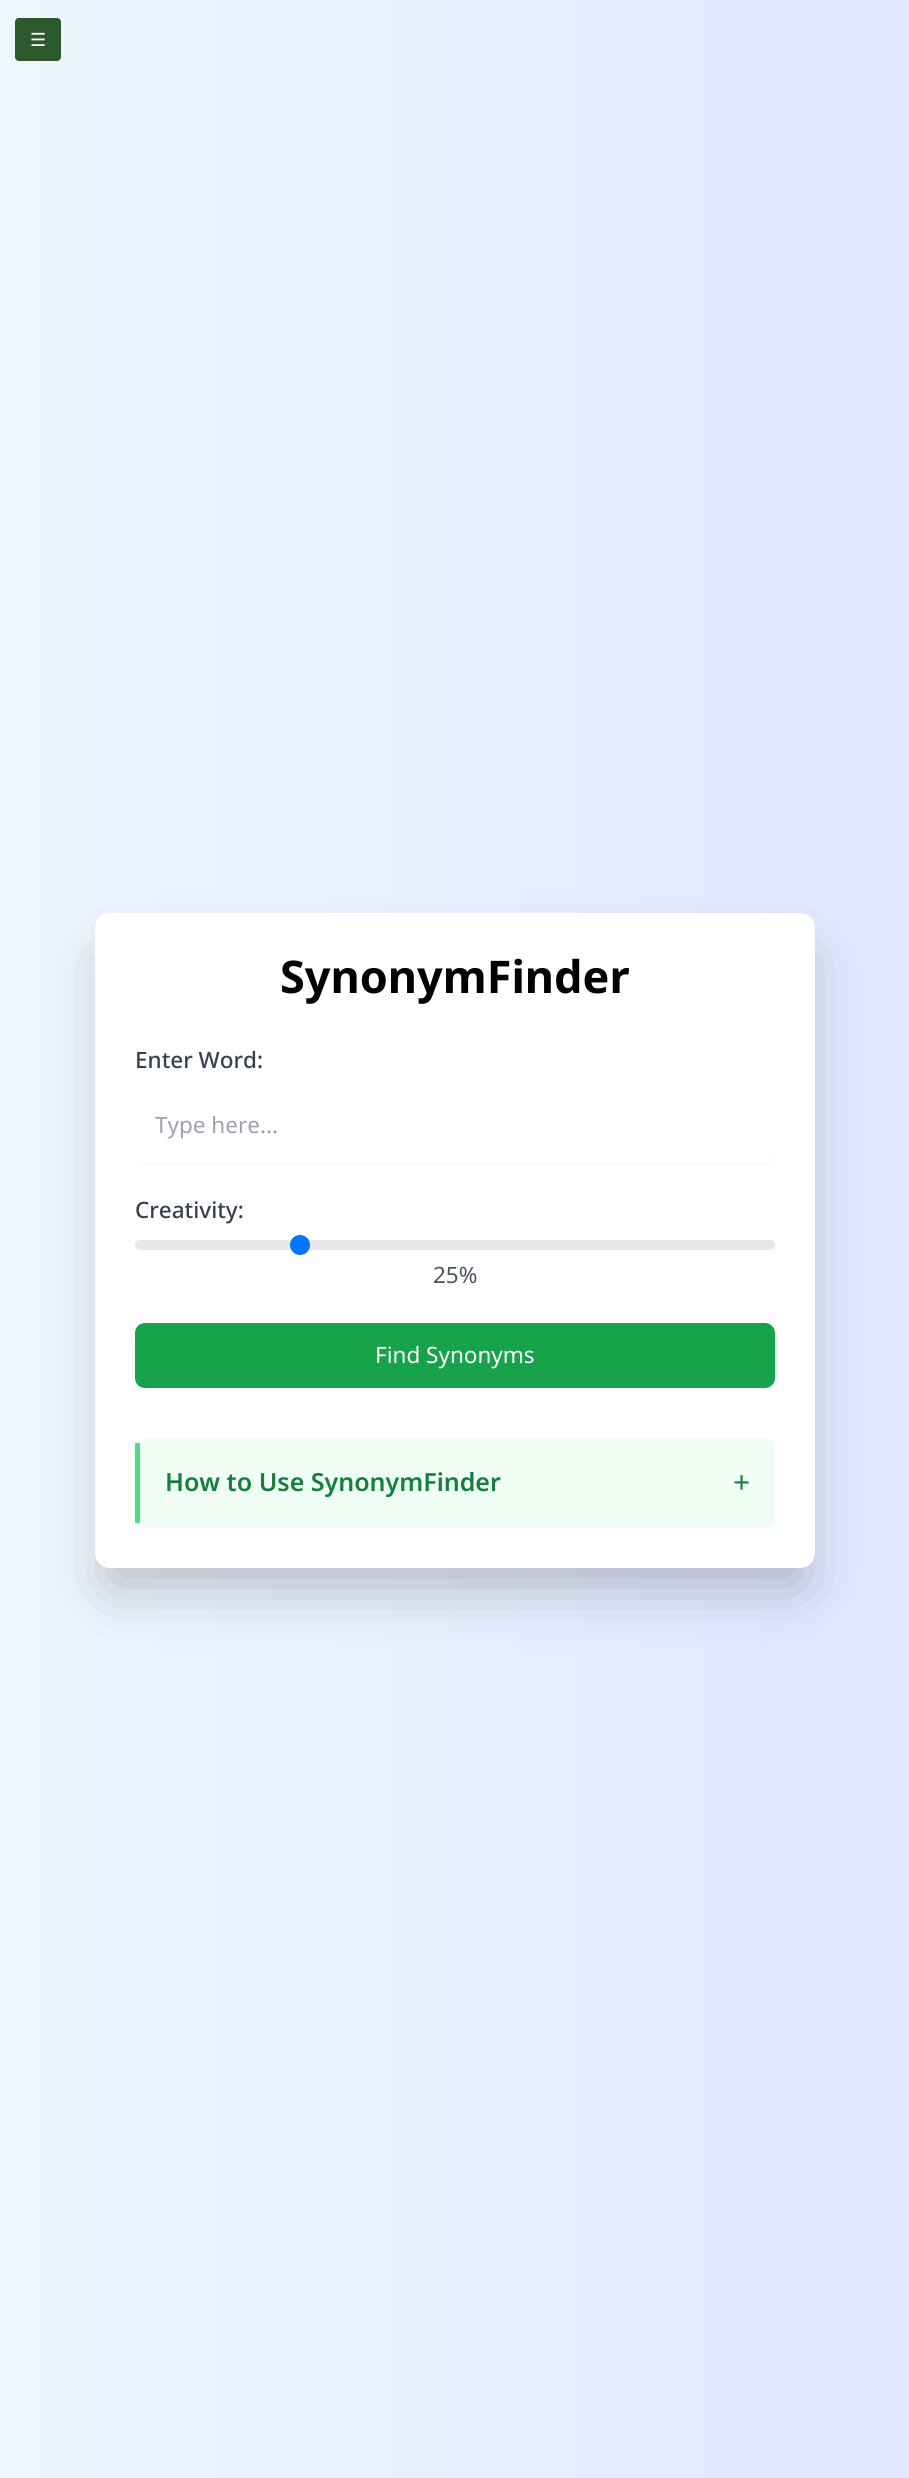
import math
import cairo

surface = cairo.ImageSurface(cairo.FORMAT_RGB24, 909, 2478)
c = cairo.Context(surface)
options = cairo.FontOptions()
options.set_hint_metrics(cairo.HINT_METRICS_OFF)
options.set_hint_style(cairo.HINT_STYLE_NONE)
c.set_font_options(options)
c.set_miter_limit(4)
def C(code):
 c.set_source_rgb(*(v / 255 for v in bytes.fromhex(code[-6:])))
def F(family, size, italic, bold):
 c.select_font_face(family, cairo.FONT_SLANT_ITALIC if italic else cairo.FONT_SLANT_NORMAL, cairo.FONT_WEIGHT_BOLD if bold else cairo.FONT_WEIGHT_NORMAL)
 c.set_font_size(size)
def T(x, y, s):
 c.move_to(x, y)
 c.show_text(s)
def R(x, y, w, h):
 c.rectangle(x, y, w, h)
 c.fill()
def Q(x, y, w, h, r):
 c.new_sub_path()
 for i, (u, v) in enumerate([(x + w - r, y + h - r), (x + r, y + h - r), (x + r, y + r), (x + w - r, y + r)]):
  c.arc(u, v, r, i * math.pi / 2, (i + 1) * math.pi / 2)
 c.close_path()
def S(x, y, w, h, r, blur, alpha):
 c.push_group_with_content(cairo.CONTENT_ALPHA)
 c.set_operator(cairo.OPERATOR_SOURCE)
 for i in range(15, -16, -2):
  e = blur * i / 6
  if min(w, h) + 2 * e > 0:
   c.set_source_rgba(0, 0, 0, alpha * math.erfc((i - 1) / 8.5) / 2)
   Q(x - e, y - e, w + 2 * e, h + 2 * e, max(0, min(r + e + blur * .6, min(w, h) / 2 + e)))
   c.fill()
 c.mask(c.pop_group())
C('ffffff')
c.paint()
gradient = cairo.LinearGradient(0,1239,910,1239)
gradient.add_color_stop_rgba(0,0.937,0.965,1,1)
gradient.add_color_stop_rgba(1,0.878,0.906,1,1)
c.set_source(gradient)
R(0,0,909,2478)
C('2b592c')
Q(15,18,46,43,4)
c.fill()
F('DejaVu Sans',18,0,0)
C('ffffff')
T(30,46,'☰')
C('000000')
S(110,959,690,625,0,31,.25)
C('ffffff')
Q(95,913,720,655,15)
c.fill()
F('Noto Sans',45,0,1)
C('000000')
T(280,993,'SynonymFinder')
F('Noto Sans Medium',22.5,0,0)
C('374151')
T(135,1068,'Enter Word:')
C('000000')
S(135,1089,640,75,10,1,.05)
C('ffffff')
Q(135,1088,640,75,10)
c.fill()
F('Noto Sans',22.5,0,0)
C('9ca3af')
T(155,1133,'Type here...')
F('Noto Sans Medium',22.5,0,0)
C('374151')
T(135,1218,'Creativity:')
C('e5e7eb')
Q(135,1240,640,10,5)
c.fill()
C('0075ff')
c.arc(300,1245,10,0,2 * math.pi)
c.fill()
F('Noto Sans',22.5,0,0)
C('4b5563')
T(433,1283,'25%')
C('16a34a')
Q(135,1323,640,65,10)
c.fill()
C('ffffff')
T(375,1363,'Find Synonyms')
C('f0fdf4')
c.new_path()
c.move_to(145,1438)
c.line_to(765,1438)
c.curve_to(771,1438,775,1442,775,1448)
c.line_to(775,1518)
c.curve_to(775,1523,771,1528,765,1528)
c.line_to(145,1528)
c.curve_to(142,1528,140,1523,140,1518)
c.line_to(140,1448)
c.curve_to(140,1442,142,1438,145,1438)
c.close_path()
c.fill()
C('4ade80')
R(135,1443,5,80)
F('Noto Sans SemiBold',25,0,0)
C('15803d')
T(165,1491,'How to Use SynonymFinder')
F('Noto Sans',30,0,0)
T(733,1493,'+')
surface.write_to_png('o.png')
